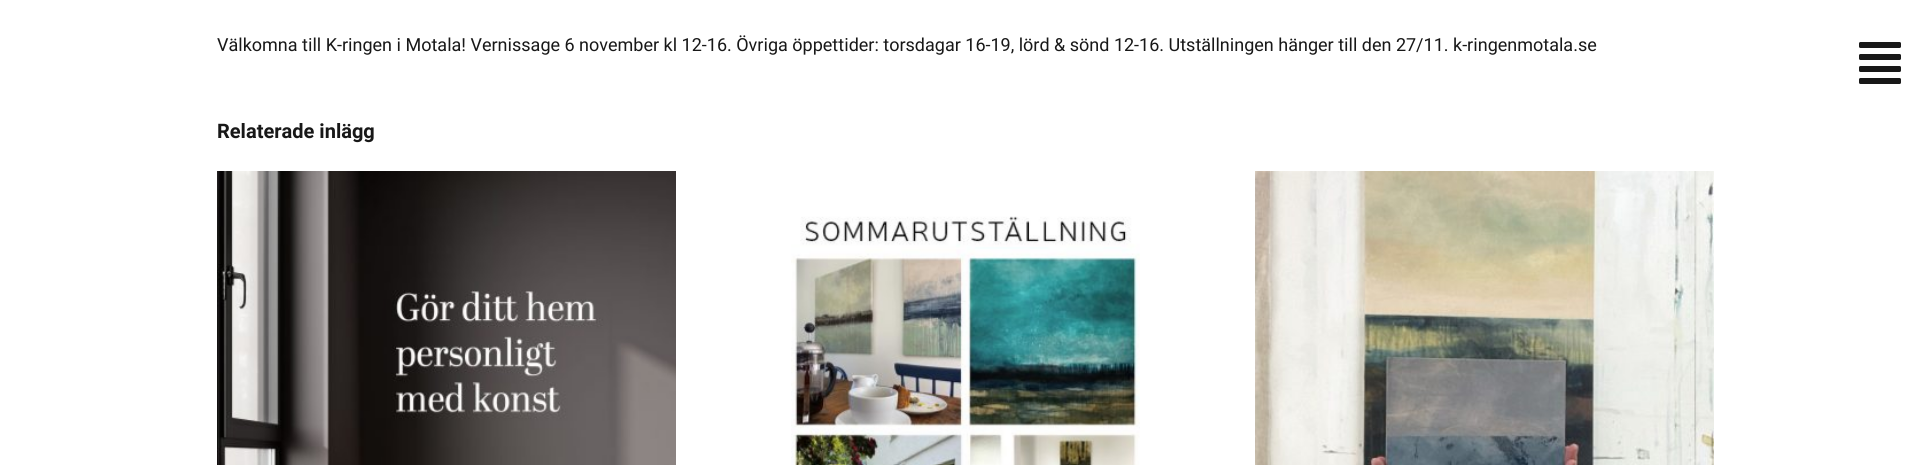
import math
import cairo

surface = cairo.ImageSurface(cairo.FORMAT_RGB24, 1931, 465)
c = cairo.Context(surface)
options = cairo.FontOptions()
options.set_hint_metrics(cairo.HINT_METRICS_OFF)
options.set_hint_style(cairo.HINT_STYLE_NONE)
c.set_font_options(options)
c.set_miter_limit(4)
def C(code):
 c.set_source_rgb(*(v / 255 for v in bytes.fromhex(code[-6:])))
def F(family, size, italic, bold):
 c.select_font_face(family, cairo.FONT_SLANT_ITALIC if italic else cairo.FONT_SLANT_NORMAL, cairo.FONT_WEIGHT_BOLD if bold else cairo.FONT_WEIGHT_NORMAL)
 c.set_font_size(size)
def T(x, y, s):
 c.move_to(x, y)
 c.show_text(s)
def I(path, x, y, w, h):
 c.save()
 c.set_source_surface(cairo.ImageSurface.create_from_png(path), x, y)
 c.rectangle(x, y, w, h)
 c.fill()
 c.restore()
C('ffffff')
c.paint()
F('Heebo',18,0,0)
C('181818')
T(217,51,'Välkomna till K-ringen i Motala! Vernissage 6 november kl 12-16. Övriga öppettider: torsdagar 16-19, lörd & sönd 12-16. Utställningen hänger till den 27/11. k-ringenmotala.se')
F('Heebo',20,0,1)
T(217,138,'Relaterade inlägg')
I('1.png',217,171,459,294)
I('2.png',791,216,349,249)
I('3.png',1255,171,459,294)
I('4.png',1859,42,42,42)
surface.write_to_png('o.png')
